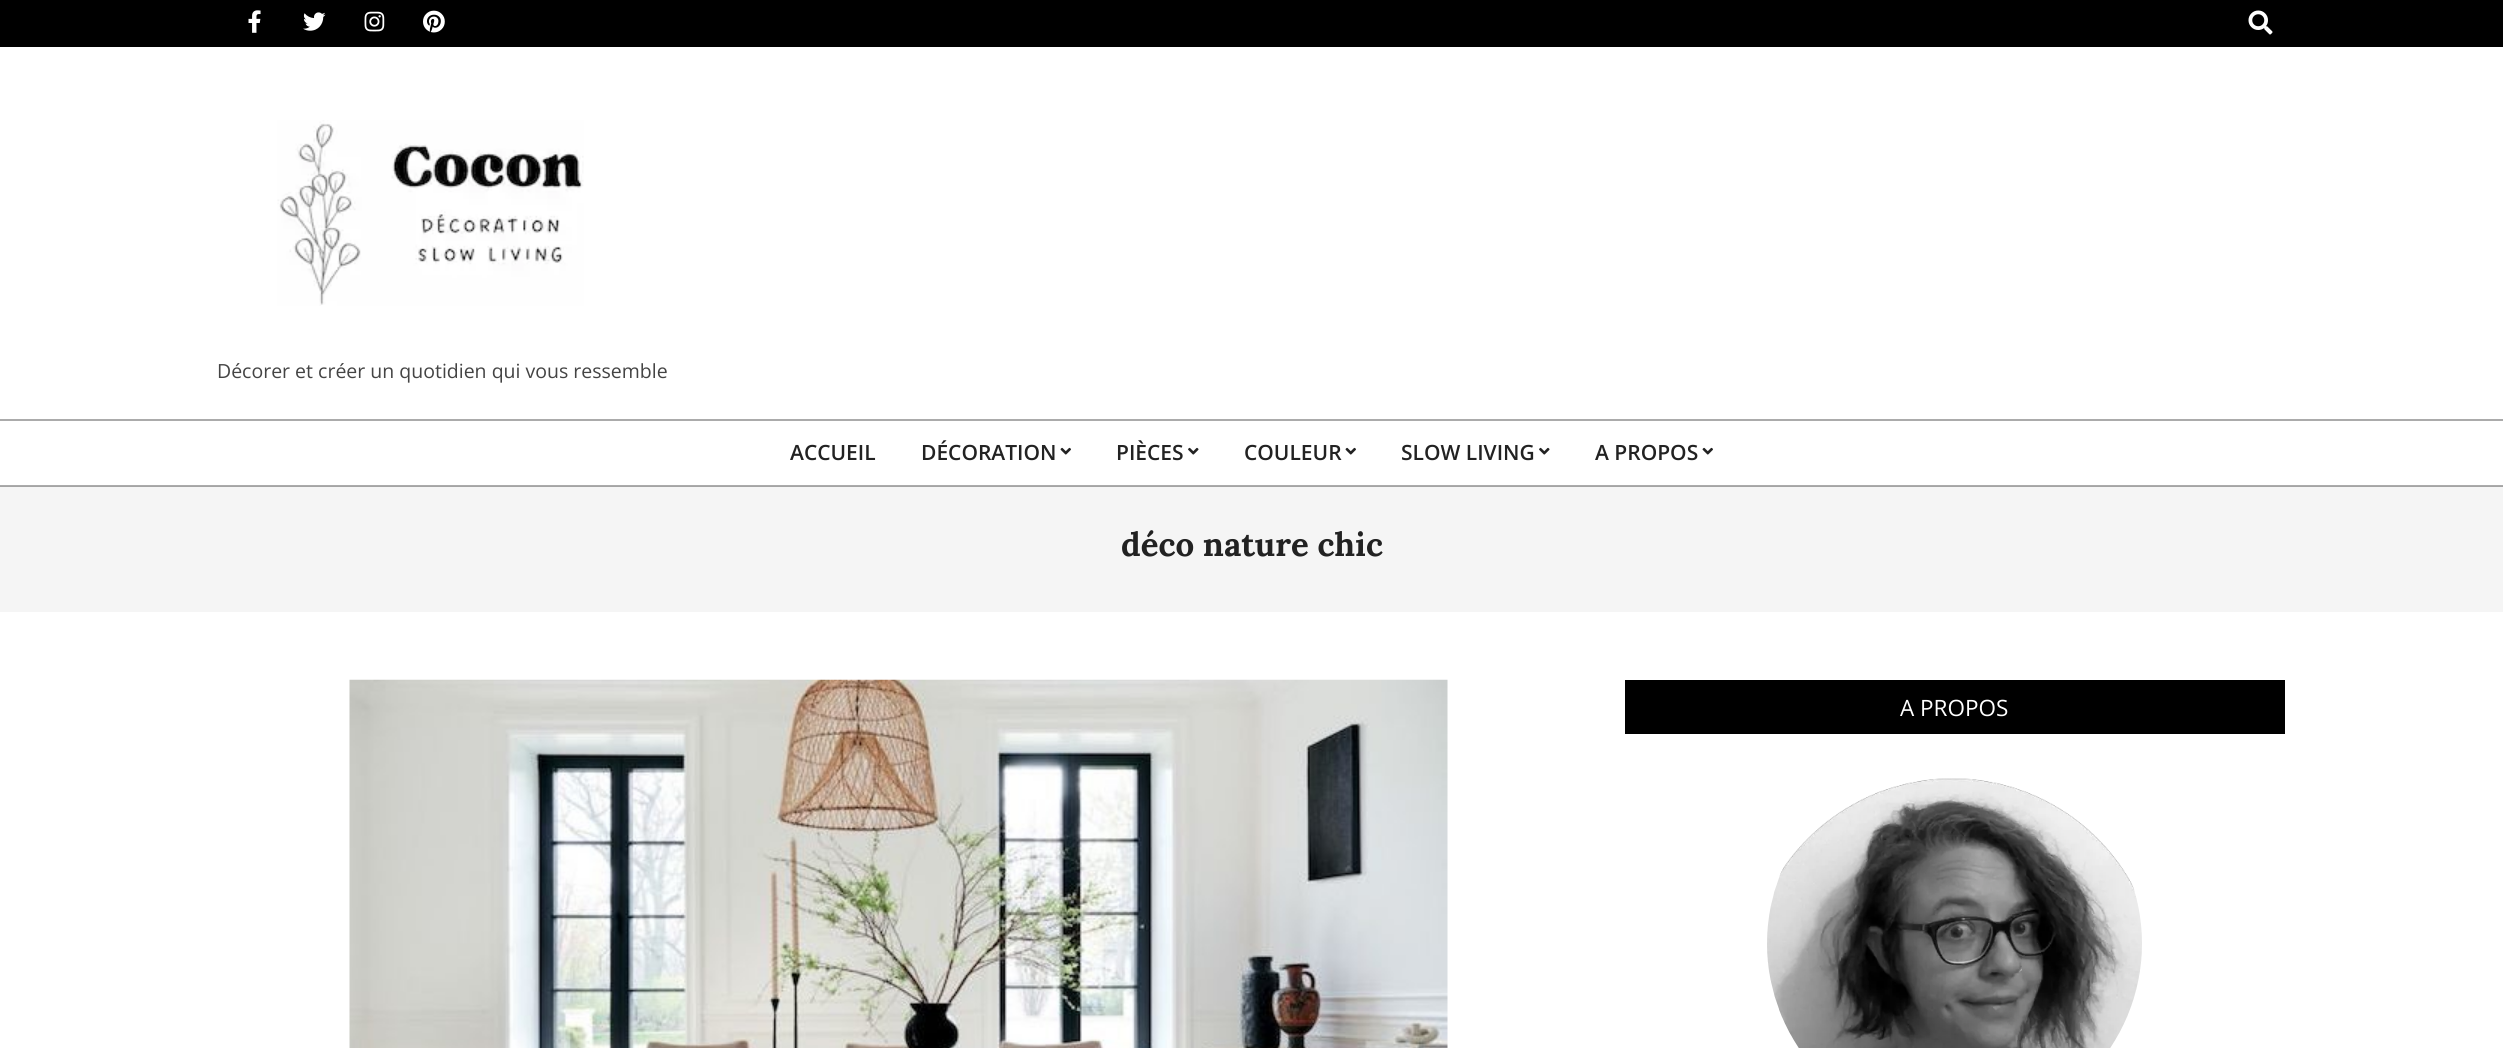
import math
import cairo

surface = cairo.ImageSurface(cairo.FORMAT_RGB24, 2503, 1048)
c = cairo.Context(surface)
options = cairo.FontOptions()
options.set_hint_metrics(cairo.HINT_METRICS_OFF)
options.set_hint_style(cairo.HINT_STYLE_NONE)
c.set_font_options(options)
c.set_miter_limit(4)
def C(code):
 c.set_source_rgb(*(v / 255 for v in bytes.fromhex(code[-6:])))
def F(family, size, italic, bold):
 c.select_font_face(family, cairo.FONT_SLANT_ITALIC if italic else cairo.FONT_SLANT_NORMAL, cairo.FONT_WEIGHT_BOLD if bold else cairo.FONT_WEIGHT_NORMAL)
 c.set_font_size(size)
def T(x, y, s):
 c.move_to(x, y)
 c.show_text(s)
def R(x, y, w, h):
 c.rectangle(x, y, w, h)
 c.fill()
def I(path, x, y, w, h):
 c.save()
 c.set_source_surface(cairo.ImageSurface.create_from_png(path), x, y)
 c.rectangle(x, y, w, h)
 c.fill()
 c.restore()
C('ffffff')
c.paint()
C('f5f5f5')
R(0,487,2503,125)
C('000000')
R(0,0,2503,47)
I('1.png',248,10,13,23)
I('2.png',303,12,23,19)
I('3.png',364,11,21,21)
I('4.png',423,10,22,23)
I('5.png',2248,10,25,25)
C('ababab')
R(0,419,2503,2)
I('6.png',277,120,307,186)
F('Open Sans',19.5,0,0)
C('444444')
T(217,378,'Décorer et créer un quotidien qui vous ressemble')
C('ababab')
R(0,485,2503,1)
C('a4a4a4')
R(0,486,2503,1)
F('Open Sans SemiBold',21,0,0)
C('222222')
T(790,460,'ACCUEIL')
T(921,460,'DÉCORATION')
I('7.png',1060,447,11,8)
T(1116,460,'PIÈCES')
I('8.png',1188,447,11,8)
T(1244,460,'COULEUR')
I('7.png',1345,447,11,8)
T(1401,460,'SLOW LIVING')
I('8.png',1539,447,11,8)
T(1595,460,'A PROPOS')
I('7.png',1702,447,11,8)
F('Lora',33,0,1)
T(1121,556,'déco nature chic')
I('9.png',349,679,1099,369)
C('000000')
R(1625,680,660,54)
F('Open Sans',22.5,0,0)
C('ffffff')
T(1900,716,'A PROPOS')
I('10.png',1767,778,375,270)
surface.write_to_png('o.png')
